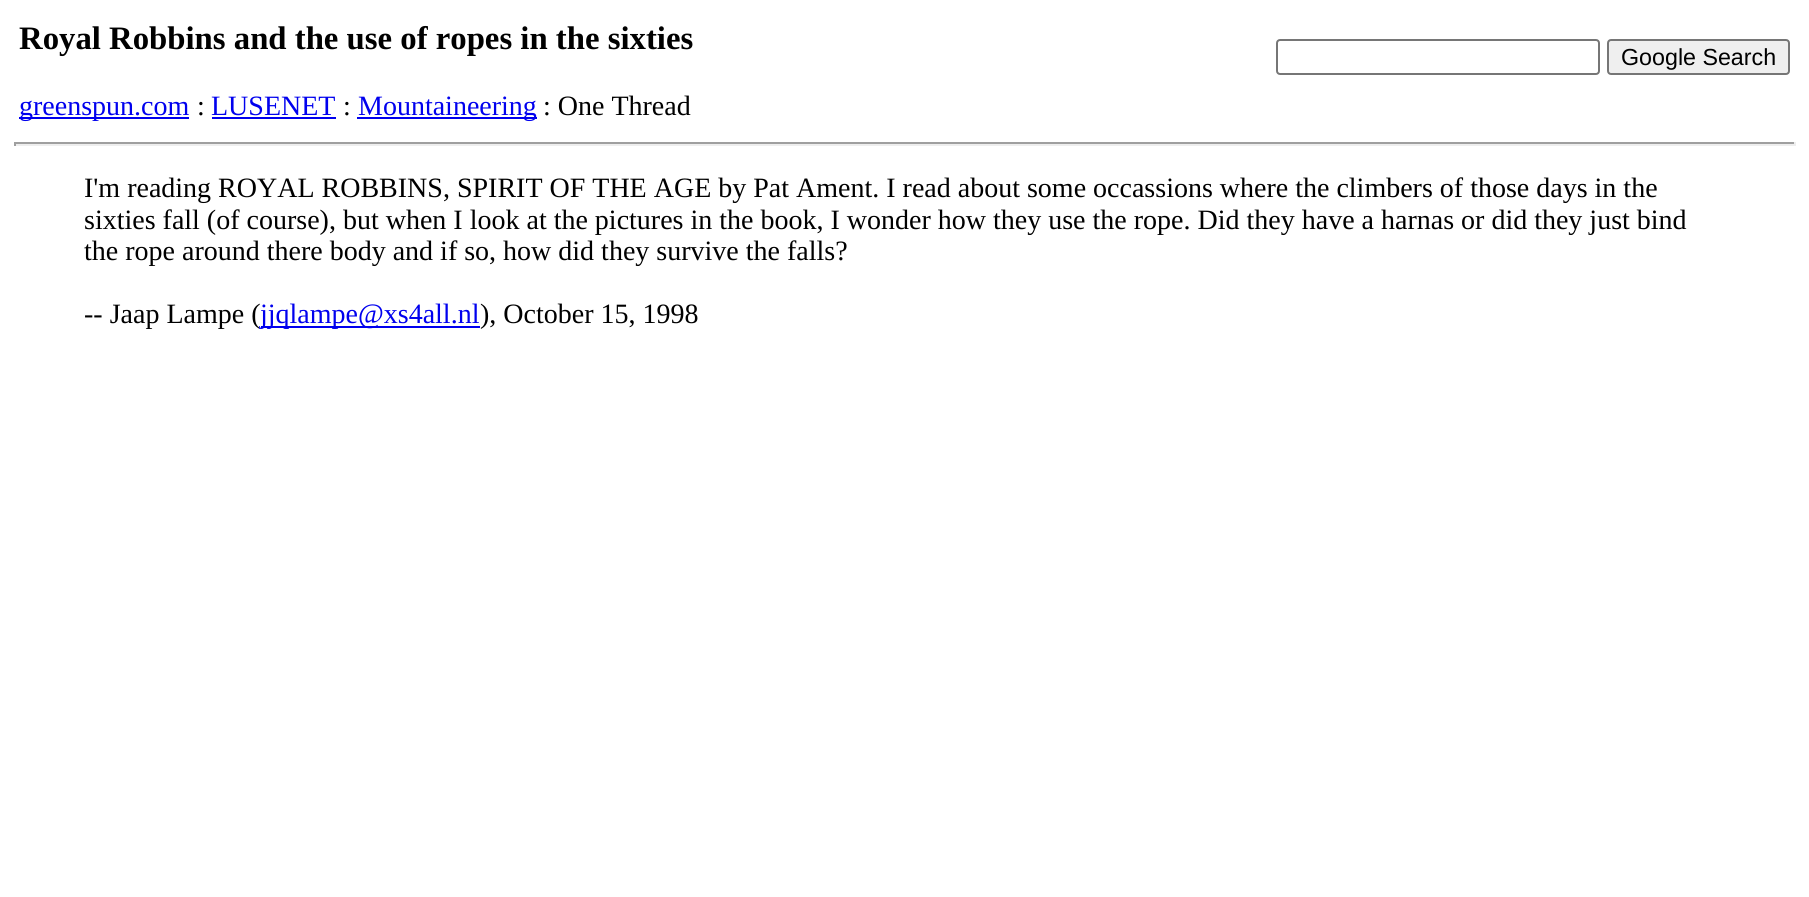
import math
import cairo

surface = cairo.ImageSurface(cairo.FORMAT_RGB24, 1809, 897)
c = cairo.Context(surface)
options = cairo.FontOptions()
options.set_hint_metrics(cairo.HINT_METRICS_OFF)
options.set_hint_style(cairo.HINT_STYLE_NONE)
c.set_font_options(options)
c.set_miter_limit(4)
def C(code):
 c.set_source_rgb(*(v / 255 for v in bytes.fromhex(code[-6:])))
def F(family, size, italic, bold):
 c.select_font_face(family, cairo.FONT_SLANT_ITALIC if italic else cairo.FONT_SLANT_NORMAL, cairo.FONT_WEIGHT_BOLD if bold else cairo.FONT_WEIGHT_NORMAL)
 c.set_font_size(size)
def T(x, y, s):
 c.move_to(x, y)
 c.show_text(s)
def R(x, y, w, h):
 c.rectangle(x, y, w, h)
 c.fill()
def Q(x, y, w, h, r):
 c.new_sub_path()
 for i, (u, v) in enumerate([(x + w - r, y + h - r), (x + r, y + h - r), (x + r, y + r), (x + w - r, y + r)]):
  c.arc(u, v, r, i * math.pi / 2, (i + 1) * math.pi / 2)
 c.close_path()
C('ffffff')
c.paint()
F('Liberation Serif',32.75,0,1)
C('000000')
T(19,49,'Royal Robbins and the use of ropes in the sixties')
C('0000ee')
R(19,117,170,2)
F('Liberation Serif',28,0,0)
T(19,115,'greenspun.com')
C('000000')
T(197,115,':')
C('0000ee')
T(211,115,'LUSENET')
R(212,117,124,2)
C('000000')
T(343,115,':')
C('0000ee')
R(357,117,180,2)
T(358,115,'Mountaineering')
C('000000')
T(543,115,': One Thread')
Q(1277,40,322,34,3)
C('767676')
c.stroke()
C('efefef')
Q(1608,40,181,34,3)
c.fill_preserve()
C('767676')
c.stroke()
F('Liberation Sans',23.25,0,0)
C('000000')
T(1621,65,'Google Search')
C('9f9f9f')
R(14,142,1782,2)
C('eeeeee')
R(1794,142,2,4)
R(14,144,1782,2)
C('9f9f9f')
R(14,142,2,4)
F('Liberation Serif',28,0,0)
C('000000')
T(84,197,'I\'m reading ROYAL ROBBINS, SPIRIT OF THE AGE by Pat Ament. I read about some occassions where the climbers of those days in the')
T(84,229,'sixties fall (of course), but when I look at the pictures in the book, I wonder how they use the rope. Did they have a harnas or did they just bind')
T(84,260,'the rope around there body and if so, how did they survive the falls?')
T(84,323,'-- Jaap Lampe (')
C('0000ee')
R(261,326,219,2)
T(260,323,'jjqlampe@xs4all.nl')
C('000000')
T(480,323,'), October 15, 1998')
surface.write_to_png('o.png')
